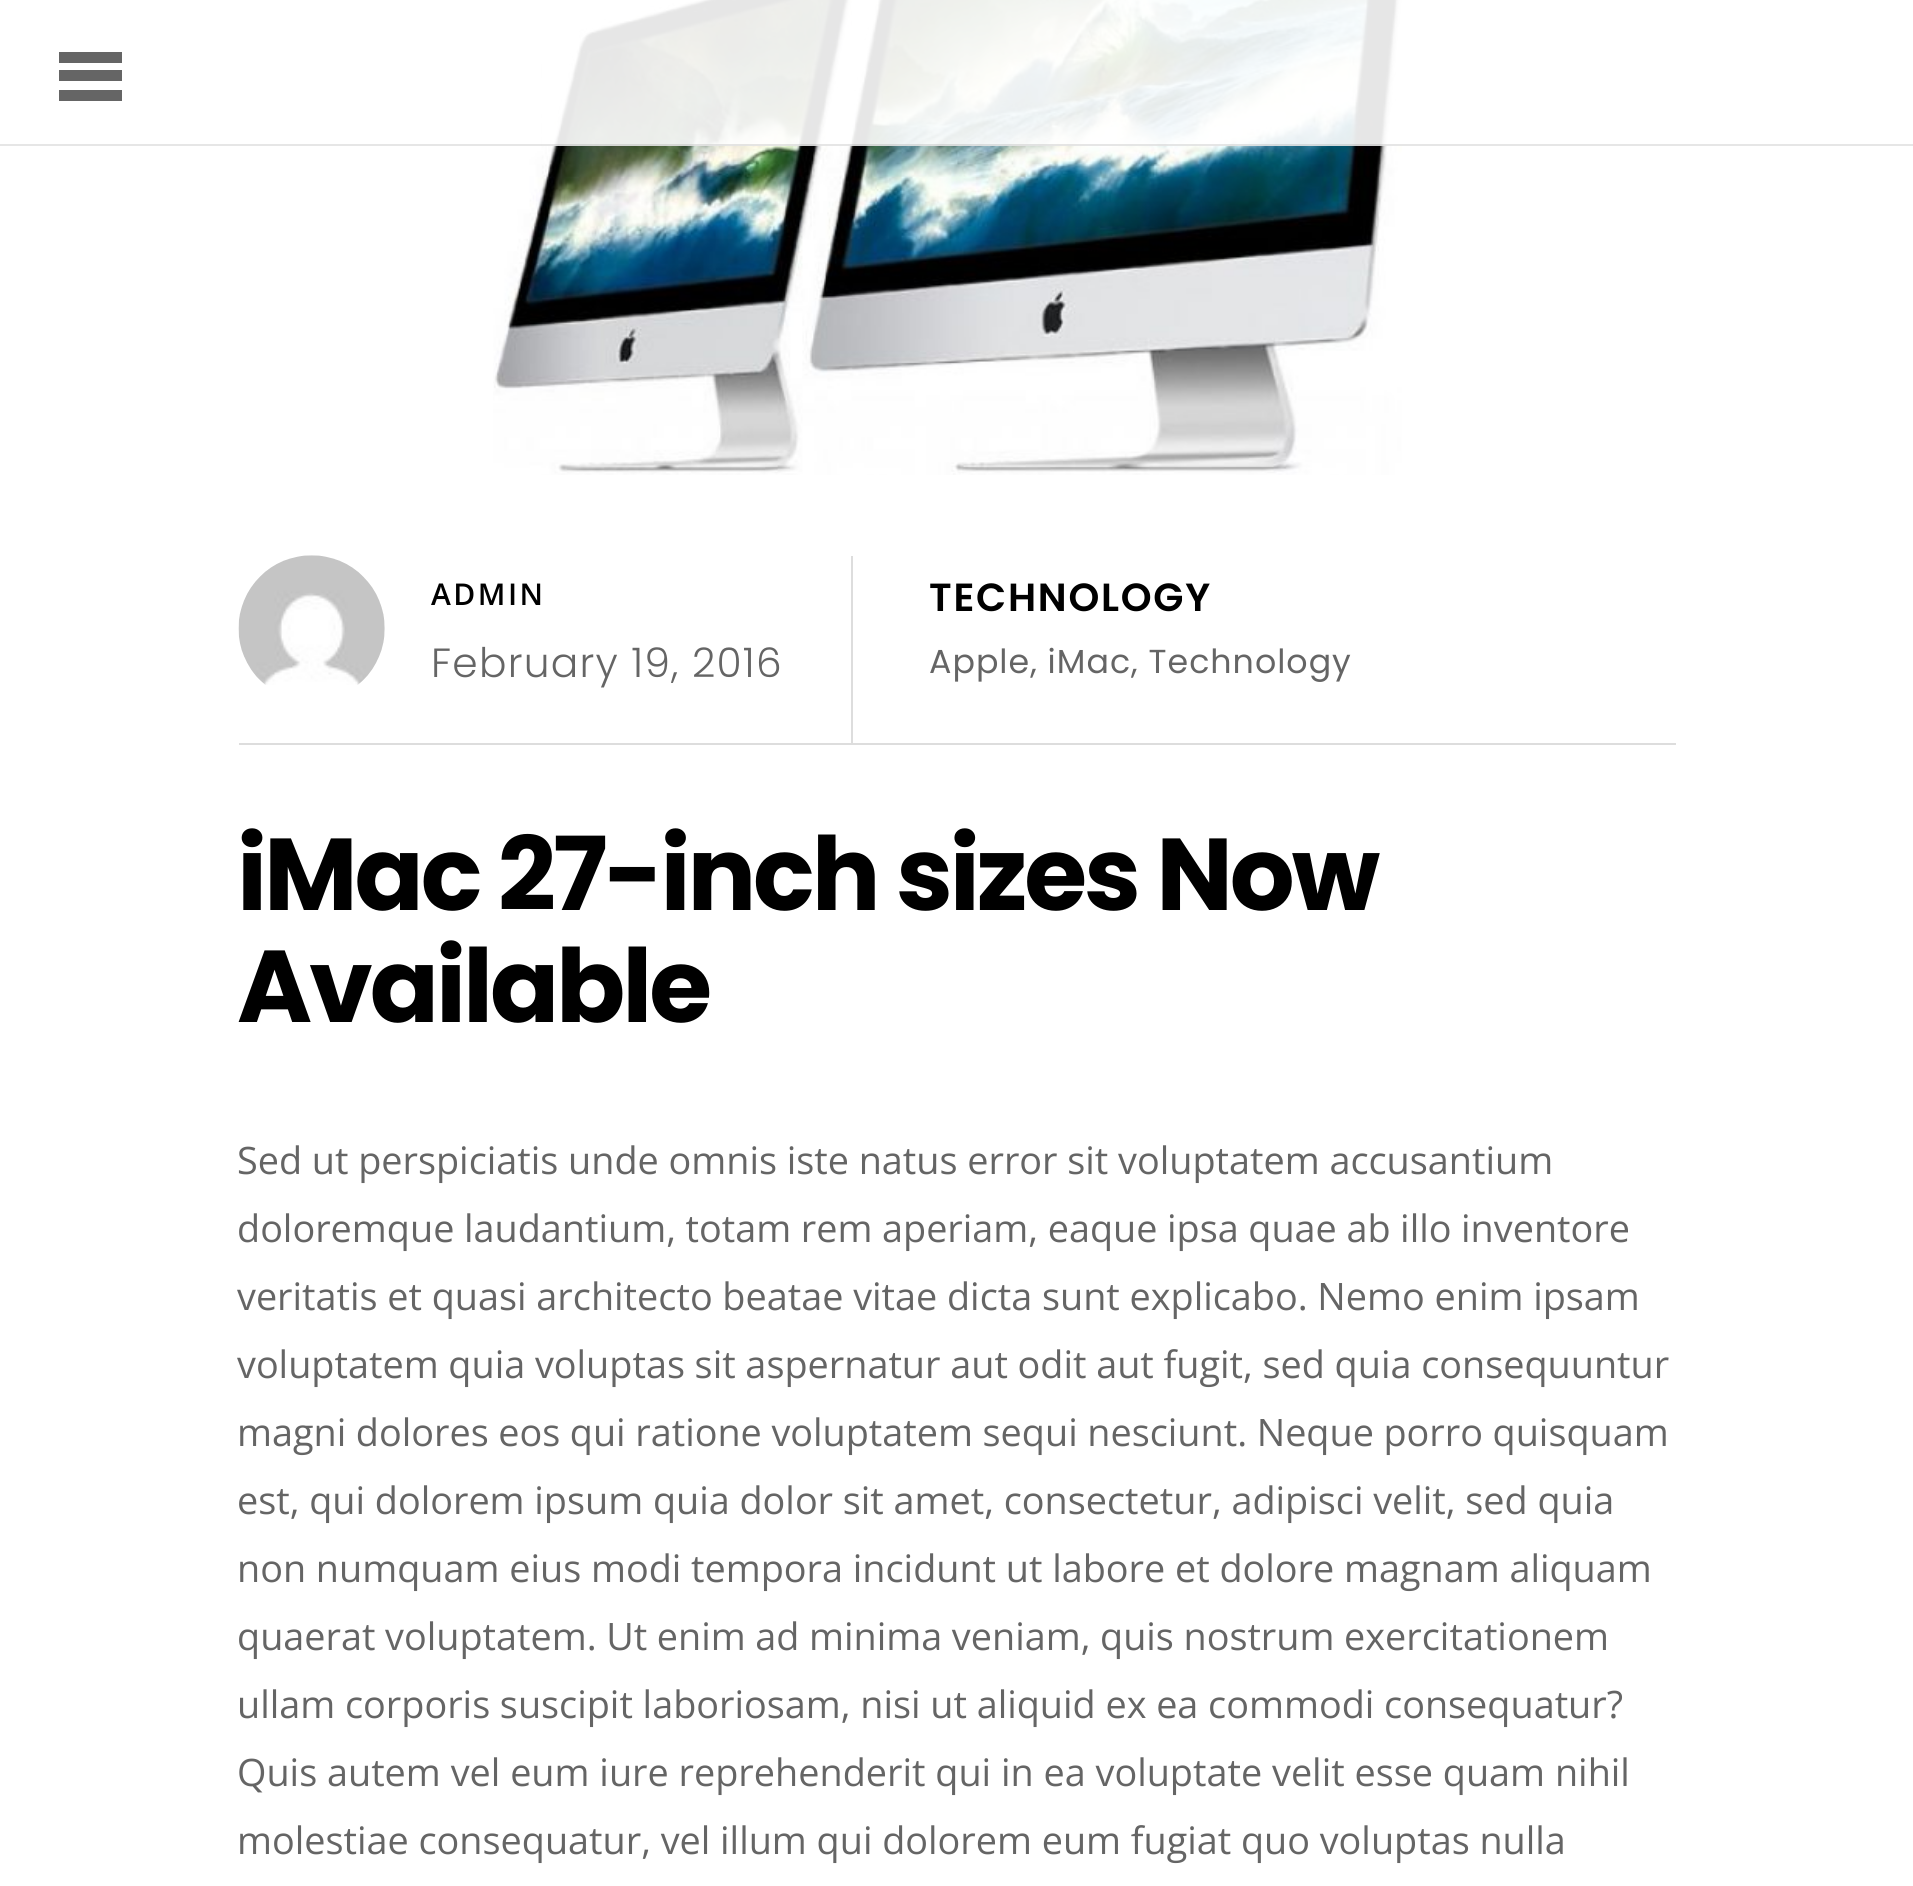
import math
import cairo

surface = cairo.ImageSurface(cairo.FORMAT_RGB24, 1913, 1886)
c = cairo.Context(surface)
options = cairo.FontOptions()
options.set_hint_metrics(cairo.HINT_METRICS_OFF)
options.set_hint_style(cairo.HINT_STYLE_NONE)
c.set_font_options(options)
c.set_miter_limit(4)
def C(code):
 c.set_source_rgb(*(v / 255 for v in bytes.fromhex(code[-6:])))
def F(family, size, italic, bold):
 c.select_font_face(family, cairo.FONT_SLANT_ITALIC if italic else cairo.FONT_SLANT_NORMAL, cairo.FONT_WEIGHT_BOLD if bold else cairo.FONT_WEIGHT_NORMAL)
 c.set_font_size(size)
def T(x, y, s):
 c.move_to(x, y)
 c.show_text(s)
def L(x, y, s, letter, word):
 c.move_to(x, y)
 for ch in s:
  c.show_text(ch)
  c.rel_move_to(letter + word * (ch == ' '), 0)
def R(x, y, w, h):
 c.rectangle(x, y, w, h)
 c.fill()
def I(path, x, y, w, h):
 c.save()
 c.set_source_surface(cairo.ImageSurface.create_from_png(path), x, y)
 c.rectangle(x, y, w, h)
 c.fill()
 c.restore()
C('ffffff')
c.paint()
I('1.png',493,0,909,475)
c.set_source_rgba(1,1,1,0.9)
R(542,0,860,146)
c.set_source_rgba(0,0,0,0.1)
R(0,144,1913,2)
C('656565')
R(59,90,63,11)
R(59,52,63,11)
R(59,70,63,11)
C('dddddd')
R(239,743,1437,2)
R(851,556,2,187)
I('2.png',238,555,147,130)
F('Open Sans SemiBold',30,0,0)
C('000000')
L(431,605,'ADMIN',2.5,0)
F('Poppins Light',40.75,0,0)
C('656565')
L(431,677,'February 19, 2016',1.25,0)
F('Poppins SemiBold',39.25,0,0)
C('000000')
L(929,611,'TECHNOLOGY',1.75,0)
F('Poppins',33.25,0,0)
C('656565')
L(929,673,'Apple, iMac, Technology',1,0)
F('Poppins',102,0,1)
C('000000')
L(237,910,'iMac 27-inch sizes Now',-3.1,0)
L(237,1022,'Available',-3.1,0)
F('Open Sans',37.8,0,0)
C('656565')
L(237,1174,'Sed ut perspiciatis unde omnis iste natus error sit voluptatem accusantium',0,-.1)
L(237,1242,'doloremque laudantium, totam rem aperiam, eaque ipsa quae ab illo inventore',0,-.25)
L(237,1310,'veritatis et quasi architecto beatae vitae dicta sunt explicabo. Nemo enim ipsam',0,-.1)
L(237,1378,'voluptatem quia voluptas sit aspernatur aut odit aut fugit, sed quia consequuntur',0,-.1)
L(237,1446,'magni dolores eos qui ratione voluptatem sequi nesciunt. Neque porro quisquam',0,-.25)
L(237,1514,'est, qui dolorem ipsum quia dolor sit amet, consectetur, adipisci velit, sed quia',0,-.1)
L(237,1582,'non numquam eius modi tempora incidunt ut labore et dolore magnam aliquam',0,-.1)
L(237,1650,'quaerat voluptatem. Ut enim ad minima veniam, quis nostrum exercitationem',0,-.25)
L(237,1718,'ullam corporis suscipit laboriosam, nisi ut aliquid ex ea commodi consequatur?',0,-.1)
T(237,1786,'Quis autem vel eum iure reprehenderit qui in ea voluptate velit esse quam nihil')
L(237,1854,'molestiae consequatur, vel illum qui dolorem eum fugiat quo voluptas nulla',0,-.1)
surface.write_to_png('o.png')
